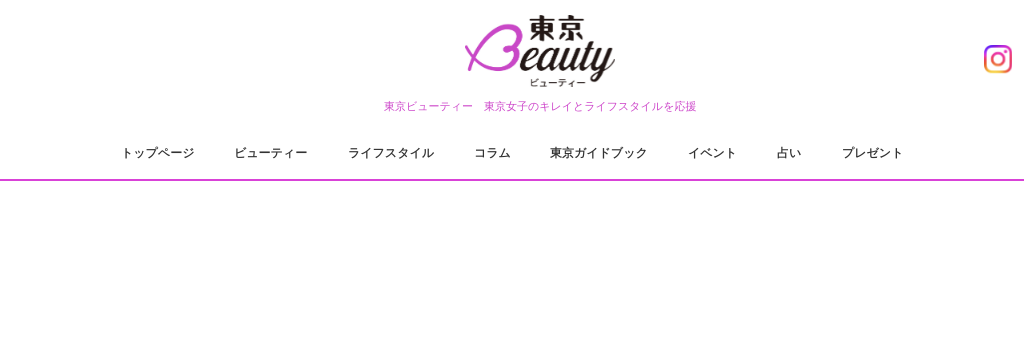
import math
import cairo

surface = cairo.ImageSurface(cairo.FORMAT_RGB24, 1024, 355)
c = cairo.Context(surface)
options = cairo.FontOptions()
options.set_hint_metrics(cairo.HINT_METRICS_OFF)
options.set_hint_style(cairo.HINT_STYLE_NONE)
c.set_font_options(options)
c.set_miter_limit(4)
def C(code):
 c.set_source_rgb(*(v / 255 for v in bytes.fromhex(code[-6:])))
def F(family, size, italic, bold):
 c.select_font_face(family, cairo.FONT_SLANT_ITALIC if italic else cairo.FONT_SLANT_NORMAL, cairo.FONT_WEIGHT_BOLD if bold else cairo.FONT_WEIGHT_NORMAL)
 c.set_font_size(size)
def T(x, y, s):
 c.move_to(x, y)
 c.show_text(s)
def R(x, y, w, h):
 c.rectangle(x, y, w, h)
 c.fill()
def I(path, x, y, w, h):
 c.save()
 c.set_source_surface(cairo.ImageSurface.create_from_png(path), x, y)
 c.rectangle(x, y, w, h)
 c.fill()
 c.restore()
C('ffffff')
c.paint()
C('d942d7')
R(0,179,1024,2)
I('1.png',465,15,150,72)
I('2.png',984,45,28,29)
F('WenQuanYi Zen Hei Medium',11,0,0)
C('cd47ca')
T(384,110,'東京ビューティー　東京女子のキレイとライフスタイルを応援')
F('WenQuanYi Zen Hei',12,0,1)
C('333333')
T(121,157,'トップページ')
T(234,157,'ビューティー')
T(348,157,'ライフスタイル')
T(474,157,'コラム')
T(550,157,'東京ガイドブック')
T(688,157,'イベント')
T(777,157,'占い')
T(842,157,'プレゼント')
surface.write_to_png('o.png')
